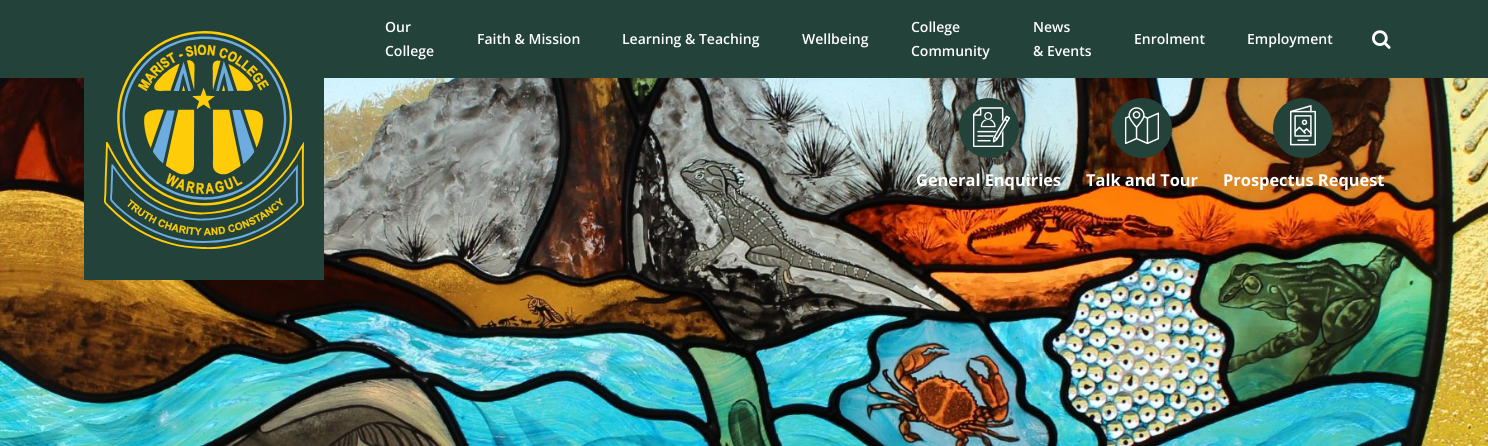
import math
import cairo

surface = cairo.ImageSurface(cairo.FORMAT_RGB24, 1488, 446)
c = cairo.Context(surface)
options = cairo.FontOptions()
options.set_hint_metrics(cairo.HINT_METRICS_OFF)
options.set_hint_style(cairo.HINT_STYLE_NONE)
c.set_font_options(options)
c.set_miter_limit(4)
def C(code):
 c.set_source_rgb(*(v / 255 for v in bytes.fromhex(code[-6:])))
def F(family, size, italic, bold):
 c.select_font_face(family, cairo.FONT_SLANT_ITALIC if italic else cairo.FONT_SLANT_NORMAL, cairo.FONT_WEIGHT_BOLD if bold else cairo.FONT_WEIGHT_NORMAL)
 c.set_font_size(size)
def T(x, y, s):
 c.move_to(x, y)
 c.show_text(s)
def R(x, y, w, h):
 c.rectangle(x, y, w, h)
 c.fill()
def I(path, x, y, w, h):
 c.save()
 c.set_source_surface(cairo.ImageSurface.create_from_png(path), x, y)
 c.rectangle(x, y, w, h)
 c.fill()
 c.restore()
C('ffffff')
c.paint()
C('22423a')
R(0,0,1488,78)
I('6.png',0,78,1488,368)
R(84,78,240,202)
I('1.png',104,31,200,218)
F('Open Sans SemiBold',14,0,0)
C('ffffff')
T(385,32,'Our')
T(385,56,'College')
T(477,44,'Faith & Mission')
T(622,44,'Learning & Teaching')
T(802,44,'Wellbeing')
T(911,32,'College')
T(911,56,'Community')
T(1033,32,'News')
T(1033,56,'& Events')
T(1134,44,'Enrolment')
T(1247,44,'Employment')
I('2.png',1372,30,19,19)
I('3.png',959,98,60,60)
F('Open Sans',16.4,0,1)
T(916,186,'General Enquiries')
I('4.png',1112,98,60,60)
T(1086,186,'Talk and Tour')
I('5.png',1273,98,60,60)
T(1223,186,'Prospectus Request')
surface.write_to_png('o.png')
